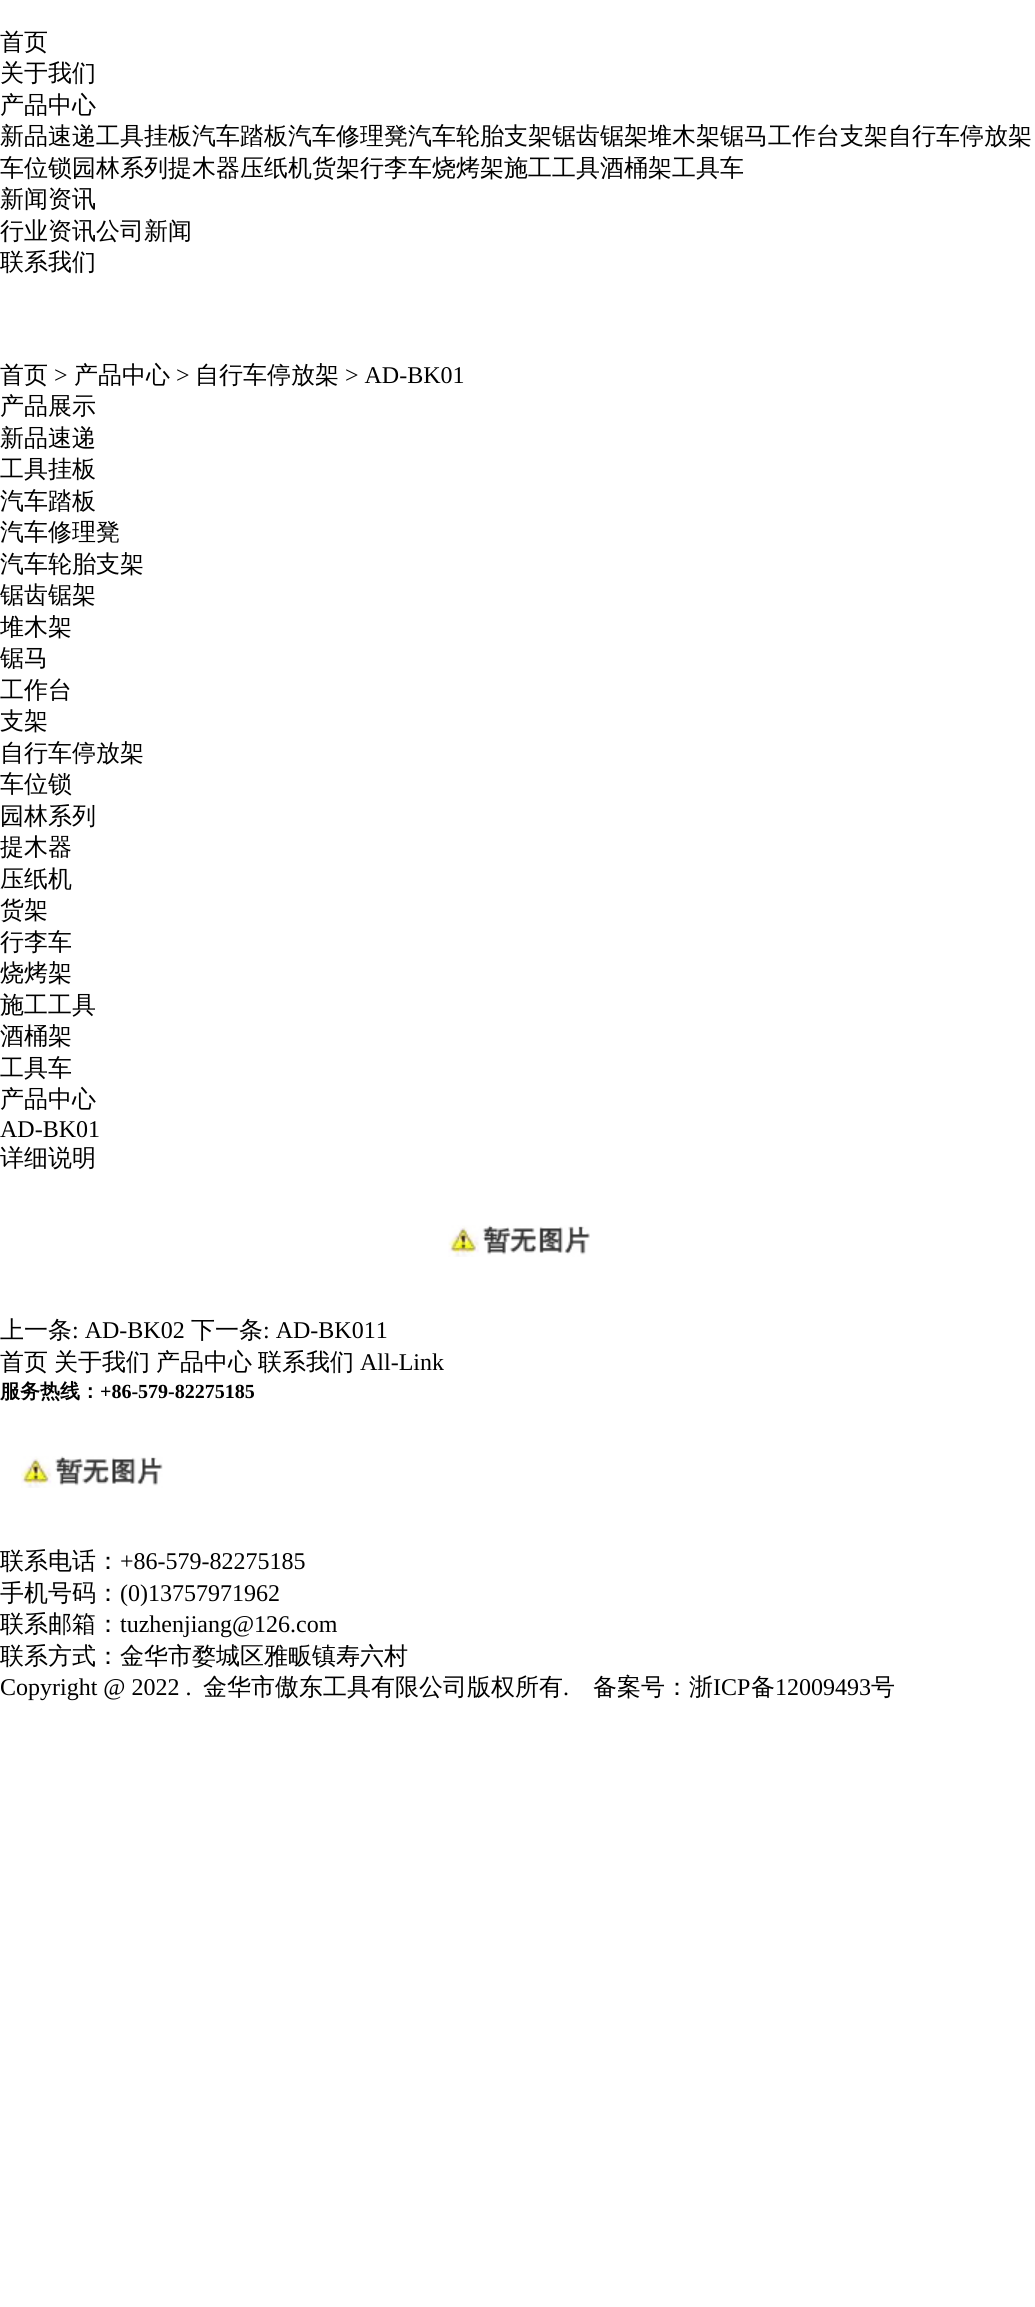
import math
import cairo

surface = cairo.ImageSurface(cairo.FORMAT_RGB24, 1035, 2307)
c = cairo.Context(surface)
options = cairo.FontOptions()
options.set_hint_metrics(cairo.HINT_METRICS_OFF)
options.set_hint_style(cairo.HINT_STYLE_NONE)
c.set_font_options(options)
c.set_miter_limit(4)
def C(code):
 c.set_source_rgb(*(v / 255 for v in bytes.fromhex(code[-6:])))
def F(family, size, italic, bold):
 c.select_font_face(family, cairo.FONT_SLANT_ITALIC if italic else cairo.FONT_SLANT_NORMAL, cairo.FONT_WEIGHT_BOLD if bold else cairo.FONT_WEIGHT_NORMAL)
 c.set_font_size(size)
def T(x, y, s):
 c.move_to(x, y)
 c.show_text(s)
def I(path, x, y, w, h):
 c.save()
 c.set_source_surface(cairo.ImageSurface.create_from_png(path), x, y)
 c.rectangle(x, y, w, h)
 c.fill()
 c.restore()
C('ffffff')
c.paint()
F('WenQuanYi Zen Hei Medium',24,0,0)
C('000000')
T(0,50,'首页')
T(0,81,'关于我们')
T(0,113,'产品中心')
T(0,144,'新品速递工具挂板汽车踏板汽车修理凳汽车轮胎支架锯齿锯架堆木架锯马工作台支架自行车停放架')
T(0,176,'车位锁园林系列提木器压纸机货架行李车烧烤架施工工具酒桶架工具车')
T(0,207,'新闻资讯')
T(0,239,'行业资讯公司新闻')
T(0,270,'联系我们')
T(0,383,'首页')
F('Liberation Serif',24,0,0)
T(54,383,'>')
F('WenQuanYi Zen Hei Medium',24,0,0)
T(74,383,'产品中心')
F('Liberation Serif',24,0,0)
T(176,383,'>')
F('WenQuanYi Zen Hei Medium',24,0,0)
T(195,383,'自行车停放架')
F('Liberation Serif',24,0,0)
T(345,383,'> AD-BK01')
F('WenQuanYi Zen Hei Medium',24,0,0)
T(0,414,'产品展示')
T(0,446,'新品速递')
T(0,477,'工具挂板')
T(0,509,'汽车踏板')
T(0,540,'汽车修理凳')
T(0,572,'汽车轮胎支架')
T(0,603,'锯齿锯架')
T(0,635,'堆木架')
T(0,666,'锯马')
T(0,698,'工作台')
T(0,729,'支架')
T(0,761,'自行车停放架')
T(0,792,'车位锁')
T(0,824,'园林系列')
T(0,855,'提木器')
T(0,887,'压纸机')
T(0,918,'货架')
T(0,950,'行李车')
T(0,981,'烧烤架')
T(0,1013,'施工工具')
T(0,1044,'酒桶架')
T(0,1076,'工具车')
T(0,1107,'产品中心')
F('Liberation Serif',24,0,0)
T(0,1137,'AD-BK01')
F('WenQuanYi Zen Hei Medium',24,0,0)
T(0,1166,'详细说明')
I('1.png',448,1225,142,32)
T(0,1338,'上一条')
F('Liberation Serif',24,0,0)
T(72,1338,': AD-BK02')
F('WenQuanYi Zen Hei Medium',24,0,0)
T(191,1338,'下一条')
F('Liberation Serif',24,0,0)
T(263,1338,': AD-BK011')
F('WenQuanYi Zen Hei Medium',24,0,0)
T(0,1370,'首页')
T(54,1370,'关于我们')
T(156,1370,'产品中心')
T(258,1370,'联系我们')
F('Liberation Serif',24,0,0)
T(360,1370,'All-Link')
F('WenQuanYi Zen Hei',20,0,1)
T(0,1398,'服务热线：')
F('Liberation Serif',20,0,1)
T(100,1398,'+86-579-82275185')
I('2.png',21,1456,142,32)
F('WenQuanYi Zen Hei Medium',24,0,0)
T(0,1569,'联系电话：')
F('Liberation Serif',24,0,0)
T(120,1569,'+86-579-82275185')
F('WenQuanYi Zen Hei Medium',24,0,0)
T(0,1601,'手机号码：')
F('Liberation Serif',24,0,0)
T(120,1601,'(0)13757971962')
F('WenQuanYi Zen Hei Medium',24,0,0)
T(0,1632,'联系邮箱：')
F('Liberation Serif',24,0,0)
T(120,1632,'tuzhenjiang@126.com')
F('WenQuanYi Zen Hei Medium',24,0,0)
T(0,1664,'联系方式：金华市婺城区雅畈镇寿六村')
F('Liberation Serif',24,0,0)
T(0,1695,'Copyright @ 2022 .')
F('WenQuanYi Zen Hei Medium',24,0,0)
T(203,1695,'金华市傲东工具有限公司版权所有')
F('Liberation Serif',24,0,0)
T(563,1695,'.')
F('WenQuanYi Zen Hei Medium',24,0,0)
T(593,1695,'备案号：浙')
F('Liberation Serif',24,0,0)
T(713,1695,'ICP')
F('WenQuanYi Zen Hei Medium',24,0,0)
T(751,1695,'备')
F('Liberation Serif',24,0,0)
T(775,1695,'12009493')
F('WenQuanYi Zen Hei Medium',24,0,0)
T(871,1695,'号')
surface.write_to_png('o.png')
